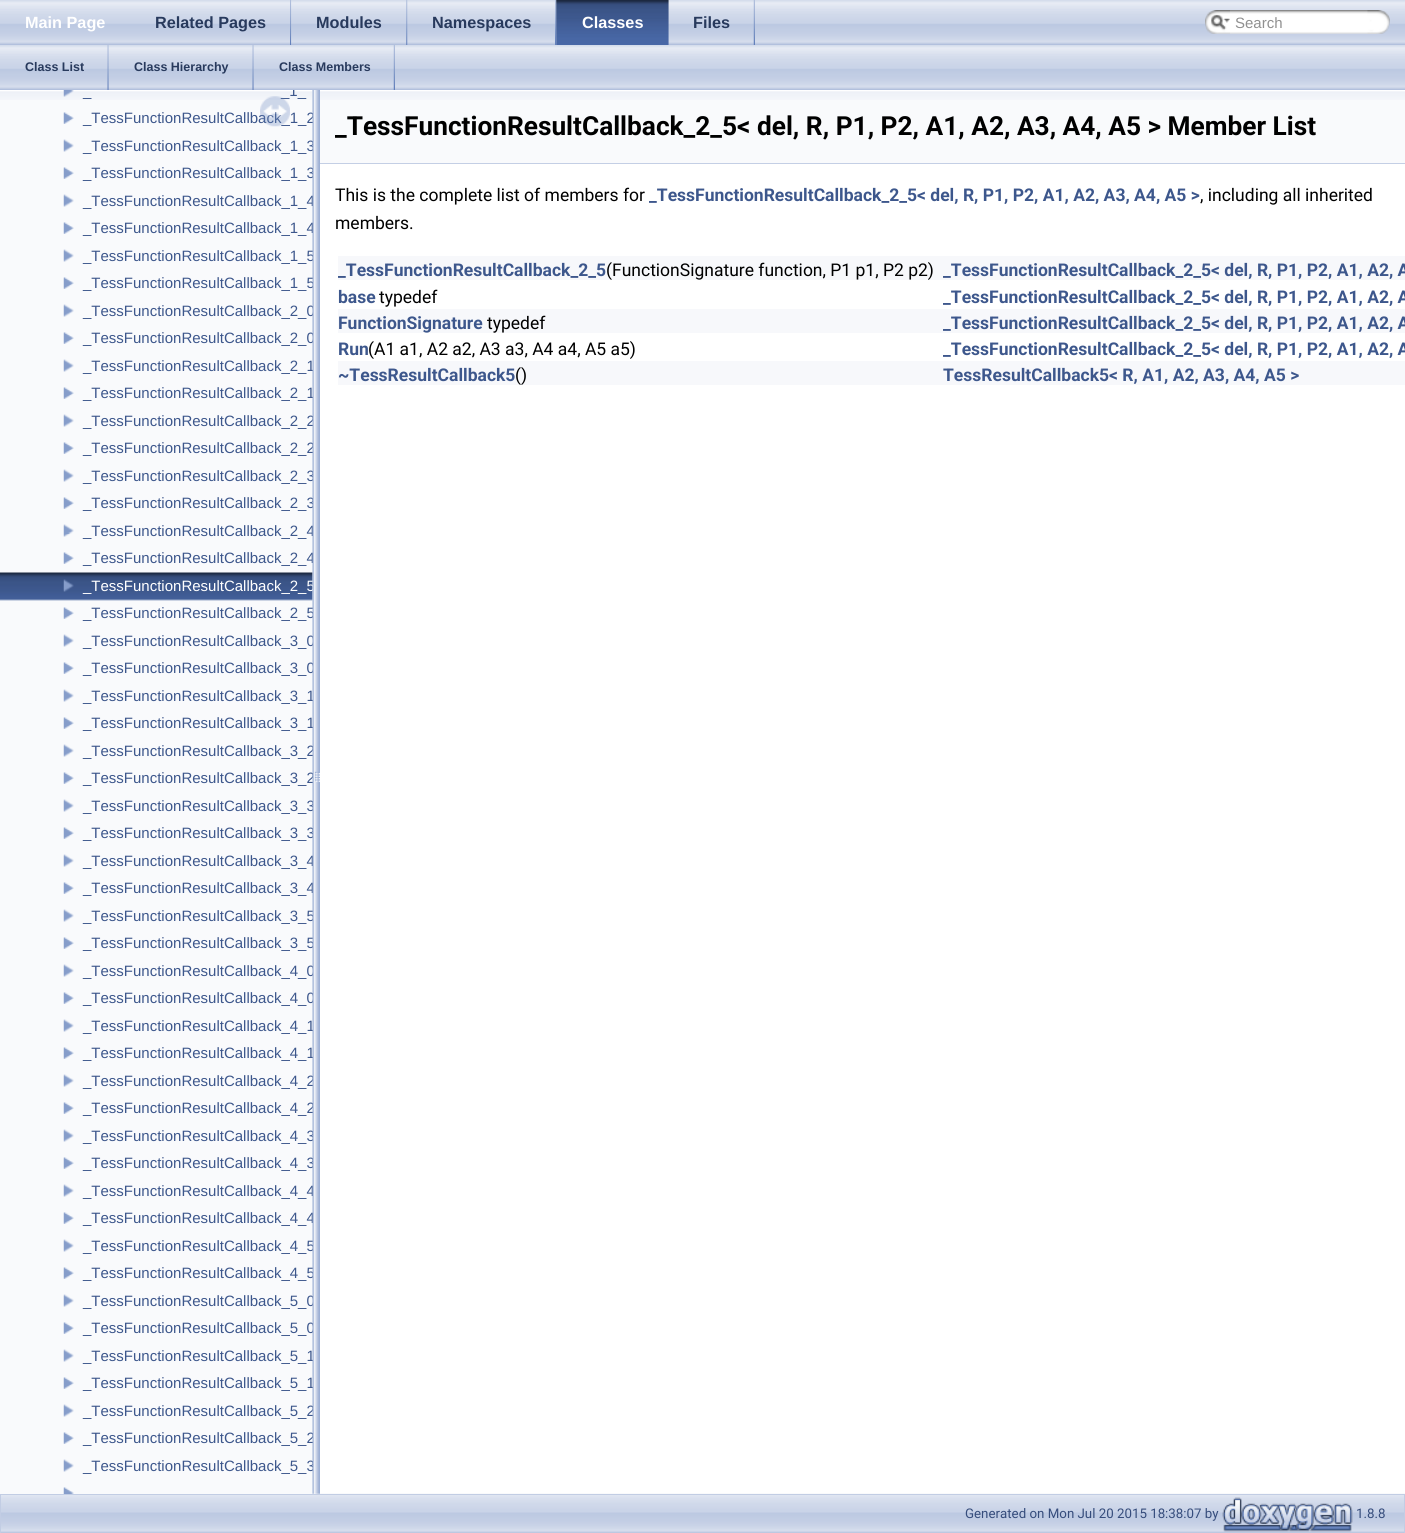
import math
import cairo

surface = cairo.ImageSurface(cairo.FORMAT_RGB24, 1405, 1533)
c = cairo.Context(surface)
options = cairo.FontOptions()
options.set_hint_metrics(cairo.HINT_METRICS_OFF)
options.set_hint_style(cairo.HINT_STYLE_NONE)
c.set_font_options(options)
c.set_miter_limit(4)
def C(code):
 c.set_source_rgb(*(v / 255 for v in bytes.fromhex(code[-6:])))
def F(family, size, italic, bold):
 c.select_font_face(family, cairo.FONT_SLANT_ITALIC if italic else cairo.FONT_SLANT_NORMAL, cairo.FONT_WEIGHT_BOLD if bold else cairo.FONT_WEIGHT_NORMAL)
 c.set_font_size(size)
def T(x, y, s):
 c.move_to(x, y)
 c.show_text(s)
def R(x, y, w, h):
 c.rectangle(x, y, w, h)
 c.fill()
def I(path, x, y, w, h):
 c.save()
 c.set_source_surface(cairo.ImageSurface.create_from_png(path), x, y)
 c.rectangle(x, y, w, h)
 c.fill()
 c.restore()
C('ffffff')
c.paint()
I('1.png',0,0,1405,45)
F('Liberation Sans',16.25,0,1)
C('ffffff')
T(25,28,'Main Page')
I('2.png',290,0,2,45)
C('283a5d')
T(155,28,'Related Pages')
I('3.png',291,0,1,45)
I('4.png',406,0,2,45)
T(316,28,'Modules')
I('5.png',407,0,1,45)
I('2.png',555,0,2,45)
T(432,28,'Namespaces')
I('3.png',556,0,1,45)
I('6.png',556,0,113,45)
C('ffffff')
T(582,28,'Classes')
I('7.png',668,0,1,45)
I('8.png',753,0,2,45)
C('283a5d')
T(693,28,'Files')
I('9.png',1205,10,25,24)
I('10.png',1211,14,19,16)
I('11.png',1230,10,147,24)
F('Liberation Sans',15,0,0)
C('909090')
T(1235,28,'Search')
I('12.png',1367,10,23,24)
I('1.png',0,45,1405,45)
I('13.png',107,45,2,45)
F('Liberation Sans',12.5,0,1)
C('283a5d')
T(25,71,'Class List')
I('14.png',108,45,1,45)
I('13.png',252,45,2,45)
T(134,71,'Class Hierarchy')
I('14.png',253,45,1,45)
I('8.png',393,45,2,45)
T(279,71,'Class Members')
I('26.png',1,1493,1404,40)
C('f9fafc')
R(0,90,313,1404)
I('15.png',0,90,313,10)
I('16.png',63,90,11,7)
F('Liberation Sans',15,0,0)
C('3d578c')
T(83,96,'_')
c.save()
c.rectangle(0,90,313,1404)
c.clip()
T(281,96,'_1_')
c.restore()
I('17.png',63,112,11,12)
T(83,123,'_TessFunctionResultCallback_1_2')
I('18.png',63,139,11,13)
T(83,151,'_TessFunctionResultCallback_1_3')
I('17.png',63,167,11,12)
T(83,178,'_TessFunctionResultCallback_1_3')
I('18.png',63,194,11,13)
T(83,206,'_TessFunctionResultCallback_1_4')
I('17.png',63,222,11,12)
T(83,233,'_TessFunctionResultCallback_1_4')
I('18.png',63,249,11,13)
T(83,261,'_TessFunctionResultCallback_1_5')
I('17.png',63,277,11,12)
T(83,288,'_TessFunctionResultCallback_1_5')
I('18.png',63,304,11,13)
T(83,316,'_TessFunctionResultCallback_2_0')
I('17.png',63,332,11,12)
T(83,343,'_TessFunctionResultCallback_2_0')
I('18.png',63,359,11,13)
T(83,371,'_TessFunctionResultCallback_2_1')
I('17.png',63,387,11,12)
T(83,398,'_TessFunctionResultCallback_2_1')
I('18.png',63,414,11,13)
T(83,426,'_TessFunctionResultCallback_2_2')
I('17.png',63,442,11,12)
T(83,453,'_TessFunctionResultCallback_2_2')
I('18.png',63,469,11,13)
T(83,481,'_TessFunctionResultCallback_2_3')
I('17.png',63,497,11,12)
T(83,508,'_TessFunctionResultCallback_2_3')
I('19.png',63,524,11,13)
T(83,536,'_TessFunctionResultCallback_2_4')
I('17.png',63,552,11,12)
T(83,563,'_TessFunctionResultCallback_2_4')
I('20.png',0,572,313,29)
I('21.png',63,579,11,13)
C('ffffff')
T(83,591,'_TessFunctionResultCallback_2_5')
I('17.png',63,607,11,12)
C('3d578c')
T(83,618,'_TessFunctionResultCallback_2_5')
I('18.png',63,634,11,13)
T(83,646,'_TessFunctionResultCallback_3_0')
I('17.png',63,662,11,12)
T(83,673,'_TessFunctionResultCallback_3_0')
I('18.png',63,689,11,13)
T(83,701,'_TessFunctionResultCallback_3_1')
I('17.png',63,717,11,12)
T(83,728,'_TessFunctionResultCallback_3_1')
I('18.png',63,744,11,13)
T(83,756,'_TessFunctionResultCallback_3_2')
I('17.png',63,772,11,12)
T(83,783,'_TessFunctionResultCallback_3_2')
I('18.png',63,799,11,13)
T(83,811,'_TessFunctionResultCallback_3_3')
I('17.png',63,827,11,12)
T(83,838,'_TessFunctionResultCallback_3_3')
I('18.png',63,854,11,13)
T(83,866,'_TessFunctionResultCallback_3_4')
I('17.png',63,882,11,12)
T(83,893,'_TessFunctionResultCallback_3_4')
I('18.png',63,909,11,13)
T(83,921,'_TessFunctionResultCallback_3_5')
I('17.png',63,937,11,12)
T(83,948,'_TessFunctionResultCallback_3_5')
I('18.png',63,964,11,13)
T(83,976,'_TessFunctionResultCallback_4_0')
I('17.png',63,992,11,12)
T(83,1003,'_TessFunctionResultCallback_4_0')
I('18.png',63,1019,11,13)
T(83,1031,'_TessFunctionResultCallback_4_1')
I('17.png',63,1047,11,12)
T(83,1058,'_TessFunctionResultCallback_4_1')
I('18.png',63,1074,11,13)
T(83,1086,'_TessFunctionResultCallback_4_2')
I('17.png',63,1102,11,12)
T(83,1113,'_TessFunctionResultCallback_4_2')
I('18.png',63,1129,11,13)
T(83,1141,'_TessFunctionResultCallback_4_3')
I('17.png',63,1157,11,12)
T(83,1168,'_TessFunctionResultCallback_4_3')
I('18.png',63,1184,11,13)
T(83,1196,'_TessFunctionResultCallback_4_4')
I('17.png',63,1212,11,12)
T(83,1223,'_TessFunctionResultCallback_4_4')
I('18.png',63,1239,11,13)
T(83,1251,'_TessFunctionResultCallback_4_5')
I('17.png',63,1267,11,12)
T(83,1278,'_TessFunctionResultCallback_4_5')
I('18.png',63,1294,11,13)
T(83,1306,'_TessFunctionResultCallback_5_0')
I('17.png',63,1322,11,12)
T(83,1333,'_TessFunctionResultCallback_5_0')
I('18.png',63,1349,11,13)
T(83,1361,'_TessFunctionResultCallback_5_1')
I('17.png',63,1377,11,12)
T(83,1388,'_TessFunctionResultCallback_5_1')
I('18.png',63,1404,11,13)
T(83,1416,'_TessFunctionResultCallback_5_2')
I('17.png',63,1432,11,12)
T(83,1443,'_TessFunctionResultCallback_5_2')
I('18.png',63,1459,11,13)
T(83,1471,'_TessFunctionResultCallback_5_3')
I('22.png',63,1487,11,7)
I('23.png',260,96,30,31)
I('24.png',312,90,8,1404)
C('f9fafc')
R(320,100,1085,63)
I('25.png',320,90,1085,10)
C('c4cfe5')
R(320,163,1085,1)
F('Roboto',26.25,0,1)
C('000000')
T(335,135,'_TessFunctionResultCallback_2_5< del, R, P1, P2, A1, A2, A3, A4, A5 > Member List')
F('Roboto',17.5,0,0)
T(335,201,'This is the complete list of members for')
F('Roboto',17.5,0,1)
C('3d578c')
T(649,201,'_TessFunctionResultCallback_2_5< del, R, P1, P2, A1, A2, A3, A4, A5 >')
F('Roboto',17.5,0,0)
C('000000')
T(1200,201,', including all inherited')
T(335,229,'members.')
C('f7f8fb')
R(338,256,1067,24)
F('Roboto',17.5,0,1)
C('3d578c')
T(338,276,'_TessFunctionResultCallback_2_5')
F('Roboto',17.5,0,0)
C('000000')
T(606,276,'(FunctionSignature function, P1 p1, P2 p2)')
F('Roboto',17.5,0,1)
C('3d578c')
T(943,276,'_TessFunctionResultCallback_2_5< del, R, P1, P2, A1, A2, A')
T(338,303,'base')
F('Roboto',17.5,0,0)
C('000000')
T(379,303,'typedef')
F('Roboto',17.5,0,1)
C('3d578c')
T(943,303,'_TessFunctionResultCallback_2_5< del, R, P1, P2, A1, A2, A')
C('f7f8fb')
R(338,309,1067,24)
C('3d578c')
T(338,329,'FunctionSignature')
F('Roboto',17.5,0,0)
C('000000')
T(487,329,'typedef')
F('Roboto',17.5,0,1)
C('3d578c')
T(943,329,'_TessFunctionResultCallback_2_5< del, R, P1, P2, A1, A2, A')
T(338,355,'Run')
F('Roboto',17.5,0,0)
C('000000')
T(368,355,'(A1 a1, A2 a2, A3 a3, A4 a4, A5 a5)')
F('Roboto',17.5,0,1)
C('3d578c')
T(943,355,'_TessFunctionResultCallback_2_5< del, R, P1, P2, A1, A2, A')
C('f7f8fb')
R(338,361,1067,24)
C('3d578c')
T(338,381,'~TessResultCallback5')
F('Roboto',17.5,0,0)
C('000000')
T(515,381,'()')
F('Roboto',17.5,0,1)
C('3d578c')
T(943,381,'TessResultCallback5< R, A1, A2, A3, A4, A5 >')
c.rectangle(.5,1494.5,1404,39)
C('c2cde4')
c.set_line_width(1)
c.stroke()
F('Roboto',13.3,0,0)
C('364d7c')
T(965,1518,'Generated on Mon Jul 20 2015 18:38:07 by')
I('27.png',1222,1497,131,35)
T(1356,1518,'1.8.8')
surface.write_to_png('o.png')
